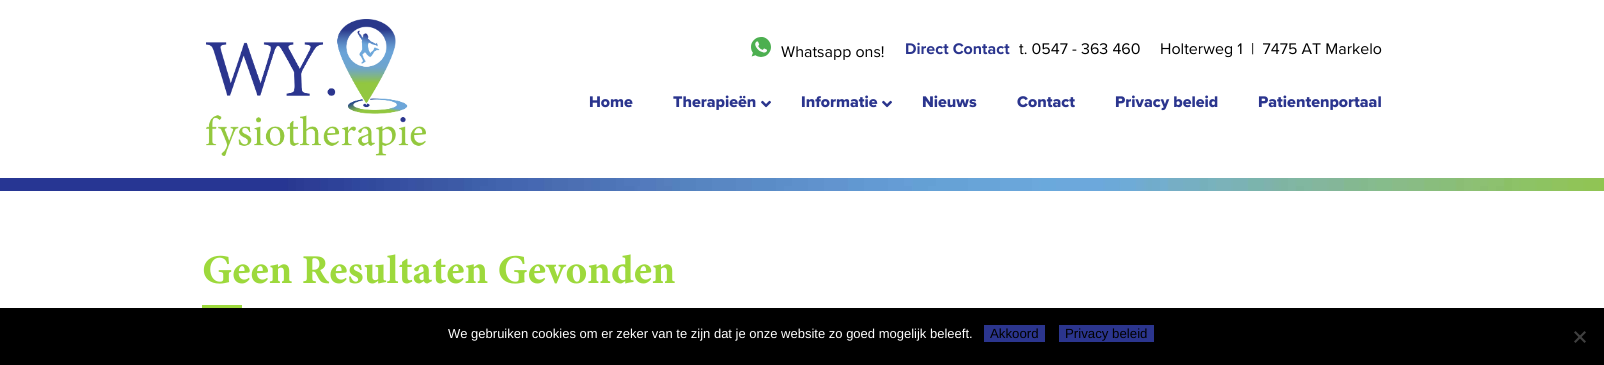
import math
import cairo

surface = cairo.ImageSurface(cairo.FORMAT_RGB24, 1604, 365)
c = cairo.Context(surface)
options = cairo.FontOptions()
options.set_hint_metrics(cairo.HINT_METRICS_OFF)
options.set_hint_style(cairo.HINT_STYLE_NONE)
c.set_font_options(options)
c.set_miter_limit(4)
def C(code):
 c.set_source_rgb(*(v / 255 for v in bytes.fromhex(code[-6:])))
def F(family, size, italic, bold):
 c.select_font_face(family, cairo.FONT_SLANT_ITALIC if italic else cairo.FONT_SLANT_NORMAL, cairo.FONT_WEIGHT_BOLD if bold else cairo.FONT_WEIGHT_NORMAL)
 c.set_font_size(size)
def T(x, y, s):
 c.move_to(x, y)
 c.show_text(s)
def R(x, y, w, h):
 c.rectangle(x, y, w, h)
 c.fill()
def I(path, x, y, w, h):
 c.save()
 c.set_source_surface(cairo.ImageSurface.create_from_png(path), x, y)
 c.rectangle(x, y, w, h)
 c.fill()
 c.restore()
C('ffffff')
c.paint()
I('1.png',751,37,20,20)
F('Proxima Nova',16,0,0)
C('000000')
T(781,57,'Whatsapp ons!')
F('Proxima Nova',16,0,1)
C('2b358e')
T(905,54,'Direct Contact')
F('Proxima Nova',16,0,0)
C('000000')
T(1019,54,'t. 0547 - 363 460')
T(1160,54,'Holterweg 1  |  7475 AT Markelo')
I('2.png',206,19,220,137)
F('Proxima Nova ExtraBold',16,0,0)
C('2b358e')
T(589,107,'Home')
T(673,107,'Therapieën')
I('3.png',761,100,10,8)
T(801,107,'Informatie')
I('3.png',882,100,10,8)
T(922,107,'Nieuws')
T(1017,107,'Contact')
T(1115,107,'Privacy beleid')
T(1258,107,'Patientenportaal')
I('4.png',0,178,1604,13)
F('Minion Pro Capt',41,0,1)
C('9dd93c')
T(202,283,'Geen Resultaten Gevonden')
R(202,305,40,3)
C('000000')
R(0,308,1604,57)
F('Liberation Sans',13,0,0)
C('ffffff')
T(448,338,'We gebruiken cookies om er zeker van te zijn dat je onze website zo goed mogelijk beleeft.')
C('2b358e')
R(984,325,61,17)
F('Liberation Sans',13.25,0,0)
C('000000')
T(990,338,'Akkoord')
C('2b358e')
R(1059,325,95,17)
C('000000')
T(1065,338,'Privacy beleid')
C('404040')
c.new_path()
c.move_to(1584.5,331)
c.line_to(1586,332.5)
c.line_to(1575.5,343)
c.line_to(1574,341.5)
c.close_path()
c.fill()
c.new_path()
c.move_to(1574,332.5)
c.line_to(1575.5,331)
c.line_to(1586,341.5)
c.line_to(1584.5,343)
c.close_path()
c.fill()
surface.write_to_png('o.png')
